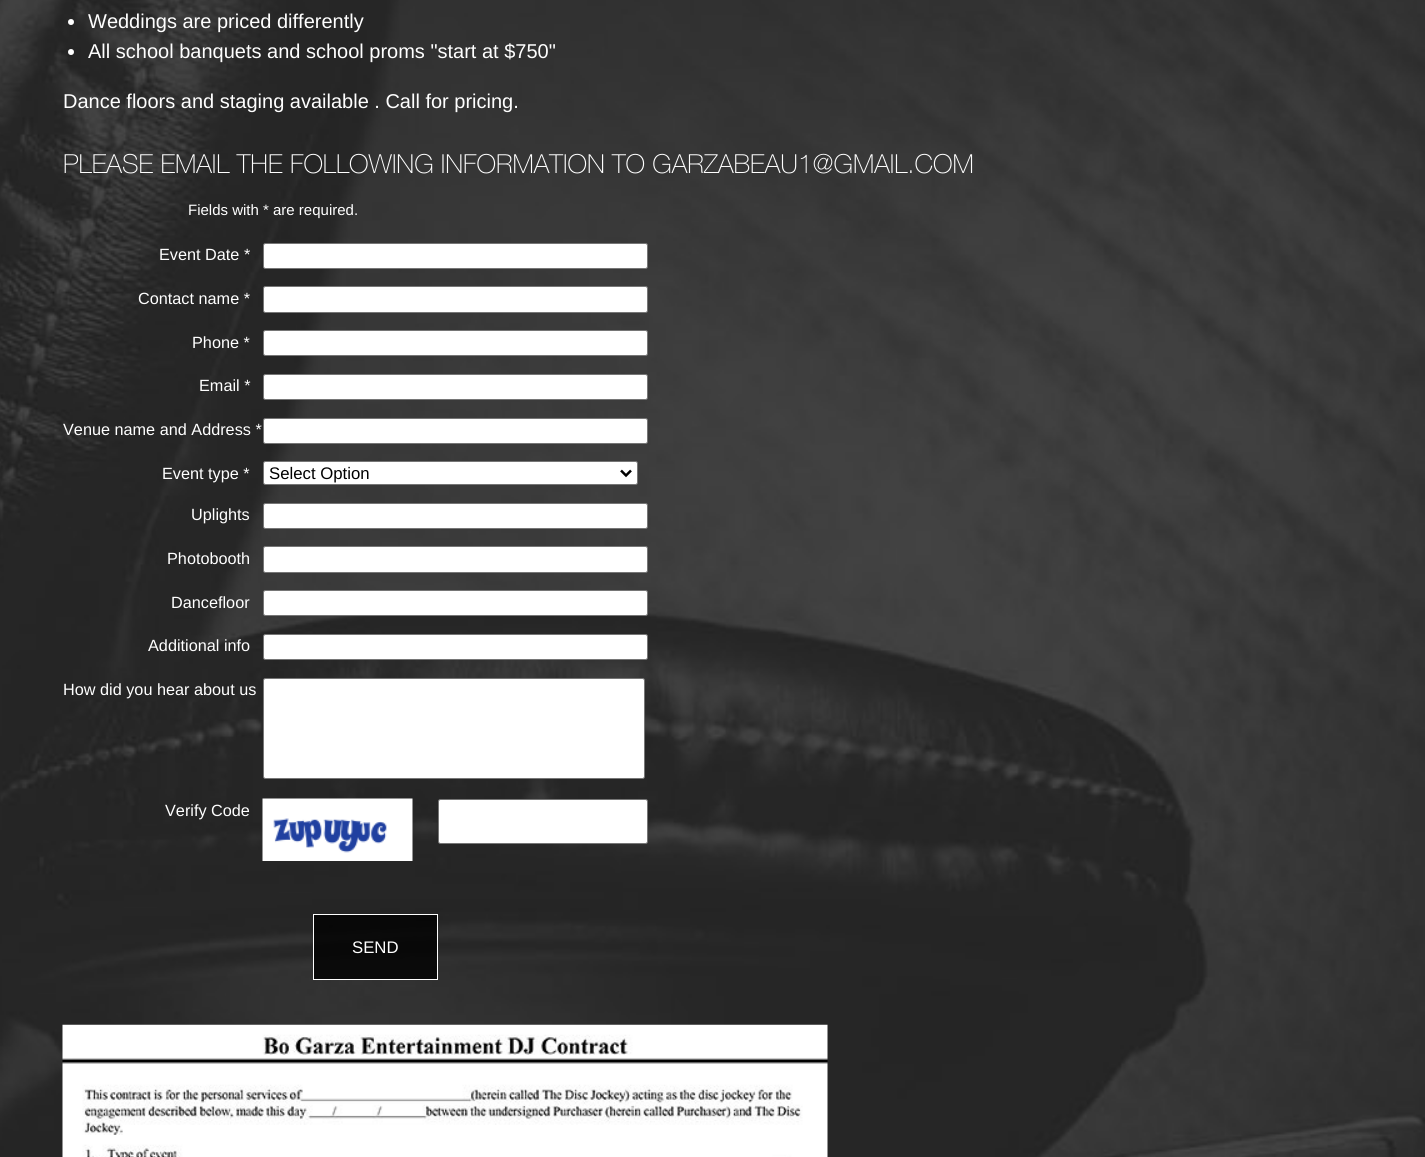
import math
import cairo

surface = cairo.ImageSurface(cairo.FORMAT_RGB24, 1425, 1157)
c = cairo.Context(surface)
options = cairo.FontOptions()
options.set_hint_metrics(cairo.HINT_METRICS_OFF)
options.set_hint_style(cairo.HINT_STYLE_NONE)
c.set_font_options(options)
c.set_miter_limit(4)
def C(code):
 c.set_source_rgb(*(v / 255 for v in bytes.fromhex(code[-6:])))
def F(family, size, italic, bold):
 c.select_font_face(family, cairo.FONT_SLANT_ITALIC if italic else cairo.FONT_SLANT_NORMAL, cairo.FONT_WEIGHT_BOLD if bold else cairo.FONT_WEIGHT_NORMAL)
 c.set_font_size(size)
def T(x, y, s):
 c.move_to(x, y)
 c.show_text(s)
def Q(x, y, w, h, r):
 c.new_sub_path()
 for i, (u, v) in enumerate([(x + w - r, y + h - r), (x + r, y + h - r), (x + r, y + r), (x + w - r, y + r)]):
  c.arc(u, v, r, i * math.pi / 2, (i + 1) * math.pi / 2)
 c.close_path()
def I(path, x, y, w, h):
 c.save()
 c.set_source_surface(cairo.ImageSurface.create_from_png(path), x, y)
 c.rectangle(x, y, w, h)
 c.fill()
 c.restore()
C('ffffff')
c.paint()
I('1.png',0,0,1425,1157)
C('ffffff')
c.arc(71,22,3,0,2 * math.pi)
c.fill()
F('Liberation Sans',20,0,0)
T(88,28,'Weddings are priced differently')
c.new_path()
c.arc(71,52,3,0,2 * math.pi)
c.fill()
T(88,58,'All school banquets and school proms "start at $750"')
T(63,108,'Dance floors and staging available . Call for pricing.')
F('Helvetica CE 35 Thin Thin',26.25,0,0)
T(63,173,'PLEASE EMAIL THE FOLLOWING INFORMATION TO GARZABEAU1@GMAIL.COM')
F('Liberation Sans',15,0,0)
T(188,215,'Fields with * are required.')
F('Liberation Sans',16.25,0,0)
T(159,260,'Event Date *')
Q(263.5,243.5,384,25,2)
c.fill_preserve()
C('767676')
c.set_line_width(1)
c.stroke()
C('ffffff')
T(138,304,'Contact name *')
Q(263.5,286.5,384,26,2)
c.fill_preserve()
C('767676')
c.stroke()
C('ffffff')
T(192,348,'Phone *')
Q(263.5,330.5,384,25,2)
c.fill_preserve()
C('767676')
c.stroke()
C('ffffff')
T(199,391,'Email *')
Q(263.5,374.5,384,25,2)
c.fill_preserve()
C('767676')
c.stroke()
C('ffffff')
T(63,435,'Venue name and Address *')
Q(263.5,418.5,384,25,2)
c.fill_preserve()
C('767676')
c.stroke()
C('ffffff')
T(162,479,'Event type *')
Q(263.5,461.5,374,23,2)
c.fill_preserve()
C('767676')
c.stroke()
c.new_path()
c.move_to(621,470.5)
c.line_to(626,475.5)
c.line_to(631,470.5)
C('000000')
c.set_line_width(2.5)
c.stroke()
F('Liberation Sans',16.75,0,0)
T(269,479,'Select Option')
F('Liberation Sans',16.25,0,0)
C('ffffff')
T(191,520,'Uplights')
Q(263.5,503.5,384,25,2)
c.fill_preserve()
C('767676')
c.set_line_width(1)
c.stroke()
C('ffffff')
T(167,564,'Photobooth')
Q(263.5,546.5,384,26,2)
c.fill_preserve()
C('767676')
c.stroke()
C('ffffff')
T(171,608,'Dancefloor')
Q(263.5,590.5,384,25,2)
c.fill_preserve()
C('767676')
c.stroke()
C('ffffff')
T(148,651,'Additional info')
Q(263.5,634.5,384,25,2)
c.fill_preserve()
C('767676')
c.stroke()
C('ffffff')
T(63,695,'How did you hear about us')
Q(263.5,678.5,381,100,2)
c.fill_preserve()
C('767676')
c.stroke()
C('ffffff')
T(165,816,'Verify Code')
I('2.png',262,798,151,63)
Q(438.5,799.5,209,44,2)
c.fill_preserve()
C('767676')
c.stroke()
c.set_source_rgba(0,0,0,0.8)
c.rectangle(313.5,914.5,124,65)
c.fill_preserve()
C('ffffff')
c.stroke()
F('Liberation Sans',16.75,0,0)
T(352,953,'SEND')
I('3.png',62,1024,766,133)
surface.write_to_png('o.png')
